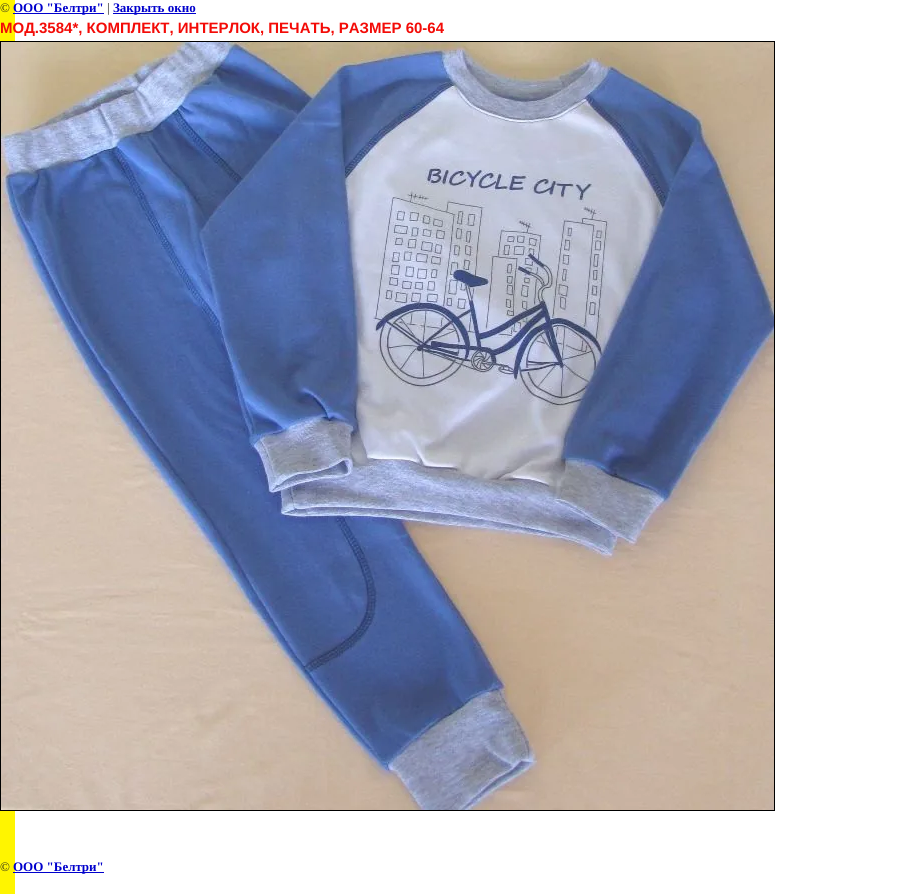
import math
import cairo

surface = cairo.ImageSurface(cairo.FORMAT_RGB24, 919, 894)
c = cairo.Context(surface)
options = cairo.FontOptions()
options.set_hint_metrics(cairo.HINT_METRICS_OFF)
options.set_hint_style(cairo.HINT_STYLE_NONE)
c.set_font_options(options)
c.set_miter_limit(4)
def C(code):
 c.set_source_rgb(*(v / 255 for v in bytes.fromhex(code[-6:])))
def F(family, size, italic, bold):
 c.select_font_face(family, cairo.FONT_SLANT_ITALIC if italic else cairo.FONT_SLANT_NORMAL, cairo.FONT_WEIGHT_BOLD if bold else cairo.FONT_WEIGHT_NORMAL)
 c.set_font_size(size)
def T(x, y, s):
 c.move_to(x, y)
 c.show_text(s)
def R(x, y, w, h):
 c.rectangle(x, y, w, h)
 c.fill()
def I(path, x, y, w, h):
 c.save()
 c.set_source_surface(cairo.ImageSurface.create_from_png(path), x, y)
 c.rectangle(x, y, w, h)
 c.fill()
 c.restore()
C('fff500')
c.paint()
C('ffffff')
R(15,0,904,894)
F('Liberation Serif',13,0,0)
C('20201f')
T(0,12,'©')
C('0000cc')
R(13,13,91,1)
F('Liberation Serif',13,0,1)
T(13,12,'ООО "Белтри"')
F('Liberation Serif',13,0,0)
C('20201f')
T(107,12,'|')
C('0000cc')
R(113,13,83,1)
F('Liberation Serif',13,0,1)
T(113,12,'Закрыть окно')
F('Liberation Sans',15,0,1)
C('f30b07')
T(0,33,'МОД.3584*, КОМПЛЕКТ, ИНТЕРЛОК, ПЕЧАТЬ, РАЗМЕР 60-64')
c.rectangle(.5,41.5,774,769)
C('000000')
c.set_line_width(1)
c.stroke()
I('1.png',1,42,773,768)
F('Liberation Serif',13,0,0)
C('20201f')
T(0,871,'©')
C('0000cc')
R(13,872,91,1)
F('Liberation Serif',13,0,1)
T(13,871,'ООО "Белтри"')
surface.write_to_png('o.png')
